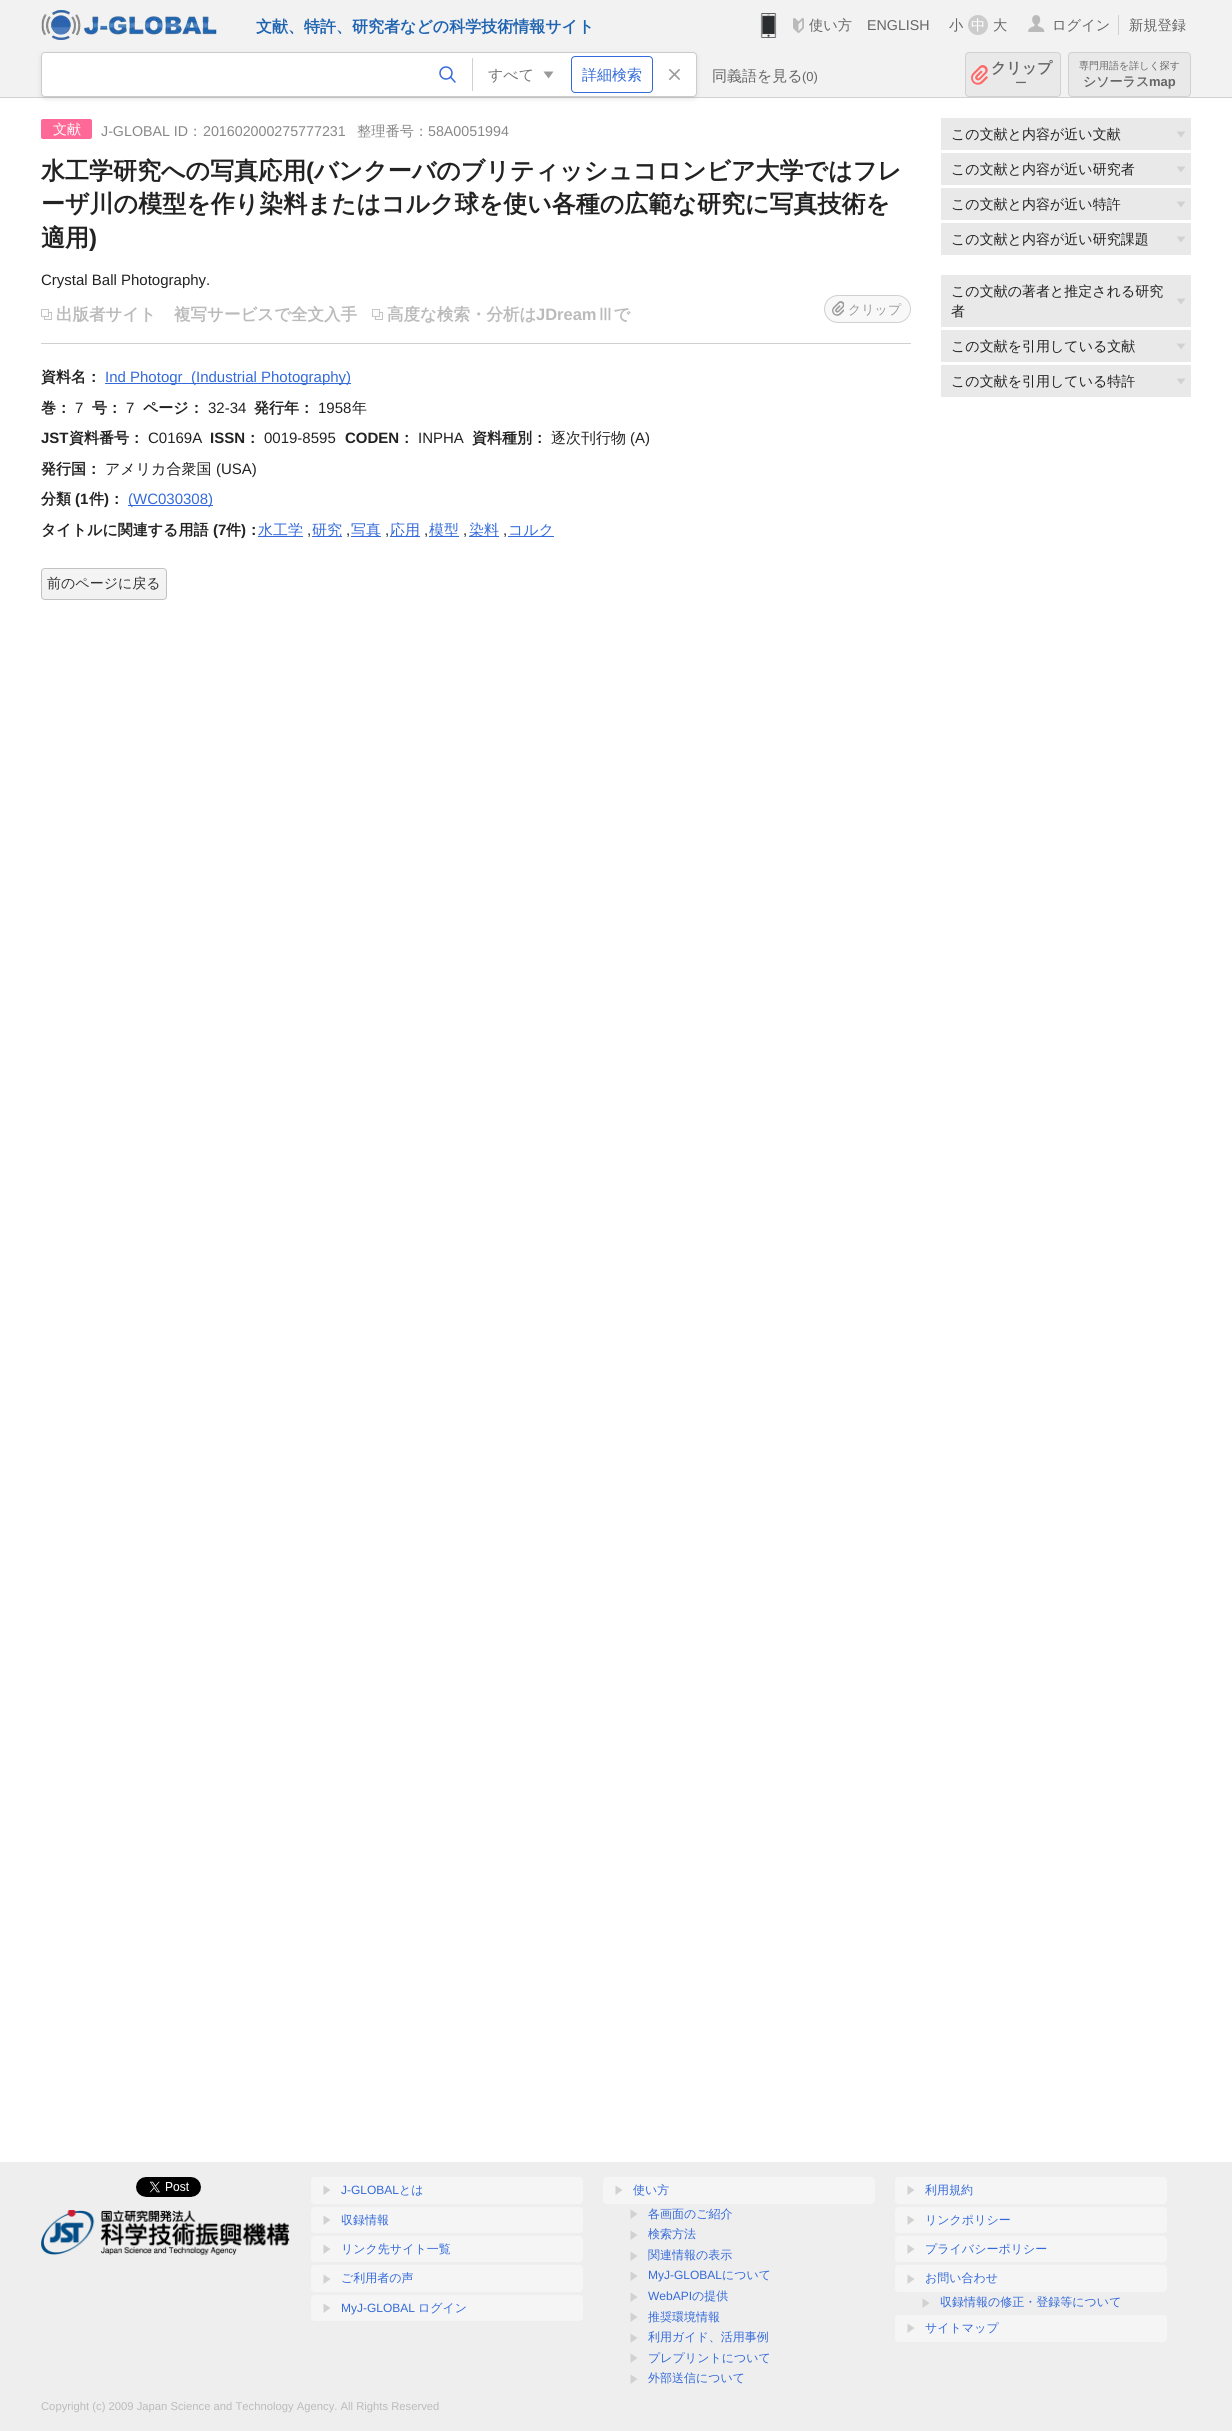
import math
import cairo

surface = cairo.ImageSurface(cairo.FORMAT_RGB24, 1232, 2431)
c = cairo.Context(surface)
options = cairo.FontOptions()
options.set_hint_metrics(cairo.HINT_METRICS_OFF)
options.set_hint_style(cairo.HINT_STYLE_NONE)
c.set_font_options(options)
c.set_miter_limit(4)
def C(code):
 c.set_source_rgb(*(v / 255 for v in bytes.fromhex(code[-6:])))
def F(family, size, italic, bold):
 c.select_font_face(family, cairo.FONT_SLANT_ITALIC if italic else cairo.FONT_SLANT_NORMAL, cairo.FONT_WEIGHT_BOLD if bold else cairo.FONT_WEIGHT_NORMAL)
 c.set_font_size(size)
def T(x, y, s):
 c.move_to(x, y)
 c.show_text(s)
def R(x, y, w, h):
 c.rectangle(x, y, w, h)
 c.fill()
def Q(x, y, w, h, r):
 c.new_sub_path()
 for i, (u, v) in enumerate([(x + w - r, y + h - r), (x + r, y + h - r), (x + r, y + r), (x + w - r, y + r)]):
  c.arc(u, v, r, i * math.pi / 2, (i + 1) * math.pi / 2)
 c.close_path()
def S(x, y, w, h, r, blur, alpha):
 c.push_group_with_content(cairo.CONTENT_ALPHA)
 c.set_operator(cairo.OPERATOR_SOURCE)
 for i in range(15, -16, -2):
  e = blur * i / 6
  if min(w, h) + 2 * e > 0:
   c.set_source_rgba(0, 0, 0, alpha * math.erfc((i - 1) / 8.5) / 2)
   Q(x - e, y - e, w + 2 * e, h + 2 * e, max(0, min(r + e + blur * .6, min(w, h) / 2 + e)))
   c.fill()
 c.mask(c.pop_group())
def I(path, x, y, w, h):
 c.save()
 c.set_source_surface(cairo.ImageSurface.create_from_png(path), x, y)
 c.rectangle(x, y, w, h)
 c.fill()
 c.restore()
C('ffffff')
c.paint()
C('f2f2f2')
R(0,0,1232,97)
I('1.png',41,10,176,30)
F('WenQuanYi Zen Hei',16,0,1)
C('2064b1')
T(256,32,'文献、特許、研究者などの科学技術情報サイト')
I('2.png',760,13,17,25)
I('3.png',793,18,11,15)
F('WenQuanYi Zen Hei Medium',14.25,0,0)
C('666666')
T(809,30,'使い方')
F('Liberation Sans',14.25,0,0)
T(867,30,'ENGLISH')
F('WenQuanYi Zen Hei Medium',14.25,0,0)
T(949,30,'小')
C('cccccc')
c.new_path()
c.arc(978,25,10,0,2 * math.pi)
c.fill()
C('ffffff')
T(971,30,'中')
C('666666')
T(993,30,'大')
I('4.png',1028,15,17,17)
C('d1d1d1')
R(1118,15,1,20)
C('666666')
T(1052,30,'ログイン')
T(1129,30,'新規登録')
C('d1d1d1')
R(0,97,1232,1)
C('000000')
S(41,54,656,45,4,2.5,.1)
C('ffffff')
Q(41.5,52.5,655,44,3.5)
c.fill_preserve()
C('cccccc')
c.set_line_width(1)
c.stroke()
c.save()
Q(42,53,654,43,3)
c.clip()
C('ffffff')
Q(42,53,380,43,4)
c.fill()
c.restore()
c.arc(446,73,6,0,2 * math.pi)
C('346ad9')
c.set_line_width(1.5)
c.stroke()
c.new_path()
c.move_to(450.5,77)
c.line_to(455,82)
c.set_line_cap(cairo.LINE_CAP_ROUND)
c.set_line_join(cairo.LINE_JOIN_ROUND)
c.stroke()
C('999999')
c.new_path()
c.move_to(553.5,71.5)
c.line_to(548.5,78.5)
c.line_to(543.5,71.5)
c.close_path()
c.fill()
C('d1d1d1')
R(472,58,1,33)
F('WenQuanYi Zen Hei Medium',15,0,0)
C('777777')
T(488,80,'すべて')
Q(571.5,56.5,81,36,3.5)
C('346ad9')
c.set_line_width(1)
c.set_line_cap(cairo.LINE_CAP_BUTT)
c.set_line_join(cairo.LINE_JOIN_MITER)
c.stroke()
T(582,80,'詳細検索')
I('5.png',669,69,11,11)
C('666666')
T(712,81,'同義語を見る')
F('Liberation Sans',13,0,0)
T(802,81,'(0)')
C('e9e9e9')
Q(965,52,96,45,4)
c.fill()
I('6.png',971,65,17,20)
Q(965.5,52.5,95,44,3.5)
C('d1d1d1')
c.stroke()
F('WenQuanYi Zen Hei',15,0,1)
C('666666')
T(991,73,'クリップ')
F('WenQuanYi Zen Hei Medium',12,0,0)
T(1015,87,'ー')
C('e9e9e9')
Q(1068.5,52.5,122,44,3.5)
c.fill_preserve()
C('d1d1d1')
c.stroke()
F('WenQuanYi Zen Hei Medium',10,0,0)
C('666666')
T(1079,69,'専門用語を詳しく探す')
F('WenQuanYi Zen Hei',13,0,1)
T(1083,86,'シソーラス')
F('Liberation Sans',13,0,1)
T(1149,86,'map')
C('d1d1d1')
R(41,343,870,1)
C('ff6997')
Q(41,119,51,20,2)
c.fill()
F('WenQuanYi Zen Hei Medium',14,0,0)
C('ffffff')
T(53,134,'文献')
F('Liberation Sans',14.25,0,0)
C('888888')
T(101,136,'J-GLOBAL ID')
F('WenQuanYi Zen Hei Medium',14.25,0,0)
T(188,136,'：')
F('Liberation Sans',14.25,0,0)
T(203,136,'201602000275777231')
F('WenQuanYi Zen Hei Medium',14.25,0,0)
T(357,136,'整理番号：')
F('Liberation Sans',14.25,0,0)
T(428,136,'58A0051994')
F('WenQuanYi Zen Hei',24,0,1)
C('222222')
T(41,179,'水工学研究への写真応用')
F('Liberation Sans',24,0,1)
T(306,179,'(')
F('WenQuanYi Zen Hei',24,0,1)
T(314,179,'バンクーバのブリティッシュコロンビア大学ではフレ')
T(41,212,'ーザ川の模型を作り染料またはコルク球を使い各種の広範な研究に写真技術を')
T(41,246,'適用')
F('Liberation Sans',24,0,1)
T(89,246,')')
F('Liberation Sans',15,0,0)
T(41,285,'Crystal Ball Photography.')
I('7.png',41,309,11,11)
F('WenQuanYi Zen Hei',16.5,0,1)
C('bbbbbb')
T(56,320,'出版者サイト')
T(174,320,'複写サービスで全文入手')
I('7.png',372,309,11,11)
T(387,320,'高度な検索・分析は')
F('Liberation Sans',16.5,0,1)
T(536,320,'JDream')
F('WenQuanYi Zen Hei',16.5,0,1)
T(597,320,'Ⅲで')
C('f8f8f8')
Q(824,295,87,28,14)
c.fill()
I('8.png',832,301,12,15)
Q(824.5,295.5,86,27,13.5)
C('d1d1d1')
c.stroke()
F('WenQuanYi Zen Hei Medium',13,0,0)
C('999999')
T(848,314,'クリップ')
F('WenQuanYi Zen Hei',15,0,1)
C('222222')
T(41,382,'資料名：')
C('346ad9')
R(105,383,246,1)
F('Liberation Sans',15,0,0)
T(105,382,'Ind Photogr')
T(191,382,'(Industrial Photography)')
F('WenQuanYi Zen Hei',15,0,1)
C('222222')
T(41,413,'巻：')
F('Liberation Sans',15,0,0)
T(75,413,'7')
F('WenQuanYi Zen Hei',15,0,1)
T(92,413,'号：')
F('Liberation Sans',15,0,0)
T(126,413,'7')
F('WenQuanYi Zen Hei',15,0,1)
T(143,413,'ページ：')
F('Liberation Sans',15,0,0)
T(208,413,'32-34')
F('WenQuanYi Zen Hei',15,0,1)
T(254,413,'発行年：')
F('Liberation Sans',15,0,0)
T(318,413,'1958')
F('WenQuanYi Zen Hei Medium',15,0,0)
T(352,413,'年')
F('Liberation Sans',15,0,1)
T(41,443,'JST')
F('WenQuanYi Zen Hei',15,0,1)
T(69,443,'資料番号：')
F('Liberation Sans',15,0,0)
T(148,443,'C0169A')
F('Liberation Sans',15,0,1)
T(210,443,'ISSN')
F('WenQuanYi Zen Hei',15,0,1)
T(245,443,'：')
F('Liberation Sans',15,0,0)
T(264,443,'0019-8595')
F('Liberation Sans',15,0,1)
T(345,443,'CODEN')
F('WenQuanYi Zen Hei',15,0,1)
T(399,443,'：')
F('Liberation Sans',15,0,0)
T(418,443,'INPHA')
F('WenQuanYi Zen Hei',15,0,1)
T(472,443,'資料種別：')
F('WenQuanYi Zen Hei Medium',15,0,0)
T(551,443,'逐次刊行物')
F('Liberation Sans',15,0,0)
T(630,443,'(A)')
F('WenQuanYi Zen Hei',15,0,1)
T(41,474,'発行国：')
F('WenQuanYi Zen Hei Medium',15,0,0)
T(105,474,'アメリカ合衆国')
F('Liberation Sans',15,0,0)
T(216,474,'(USA)')
F('WenQuanYi Zen Hei',15,0,1)
T(41,504,'分類')
F('Liberation Sans',15,0,1)
T(75,504,'(1')
F('WenQuanYi Zen Hei',15,0,1)
T(89,504,'件')
F('Liberation Sans',15,0,1)
T(104,504,')')
F('WenQuanYi Zen Hei',15,0,1)
T(109,504,'：')
C('346ad9')
R(128,505,85,1)
F('Liberation Sans',15,0,0)
T(128,504,'(WC030308)')
F('WenQuanYi Zen Hei',15,0,1)
C('222222')
T(41,535,'タイトルに関連する用語')
F('Liberation Sans',15,0,1)
T(213,535,'(7')
F('WenQuanYi Zen Hei',15,0,1)
T(226,535,'件')
F('Liberation Sans',15,0,1)
T(241,535,')')
F('WenQuanYi Zen Hei',15,0,1)
T(246,535,'：')
C('346ad9')
R(258,536,45,1)
F('WenQuanYi Zen Hei Medium',15,0,0)
T(258,535,'水工学')
F('Liberation Sans',15,0,0)
C('222222')
T(307,535,',')
C('346ad9')
R(312,536,30,1)
F('WenQuanYi Zen Hei Medium',15,0,0)
T(312,535,'研究')
F('Liberation Sans',15,0,0)
C('222222')
T(346,535,',')
C('346ad9')
R(351,536,30,1)
F('WenQuanYi Zen Hei Medium',15,0,0)
T(351,535,'写真')
F('Liberation Sans',15,0,0)
C('222222')
T(385,535,',')
C('346ad9')
R(390,536,30,1)
F('WenQuanYi Zen Hei Medium',15,0,0)
T(390,535,'応用')
F('Liberation Sans',15,0,0)
C('222222')
T(424,535,',')
C('346ad9')
R(429,536,30,1)
F('WenQuanYi Zen Hei Medium',15,0,0)
T(429,535,'模型')
F('Liberation Sans',15,0,0)
C('222222')
T(463,535,',')
C('346ad9')
R(469,536,30,1)
F('WenQuanYi Zen Hei Medium',15,0,0)
T(469,535,'染料')
F('Liberation Sans',15,0,0)
C('222222')
T(503,535,',')
C('346ad9')
R(508,536,46,1)
F('WenQuanYi Zen Hei Medium',15,0,0)
T(508,535,'コルク')
c.save()
Q(41,568,126,32,4)
c.clip()
gradient = cairo.LinearGradient(104,569,104,599)
gradient.add_color_stop_rgba(0,0.961,0.961,0.961,1)
gradient.add_color_stop_rgba(1,0.945,0.945,0.945,1)
c.set_source(gradient)
R(41,569,126,30)
c.restore()
Q(41.5,568.5,125,31,3.5)
C('c2c2c2')
c.stroke()
F('WenQuanYi Zen Hei Medium',14,0,0)
C('333333')
T(47,588,'前のページに戻る')
C('e9e9e9')
R(941,118,250,32)
C('d1d1d1')
c.new_path()
c.move_to(1185.5,131.5)
c.line_to(1181,137.5)
c.line_to(1176.5,131.5)
c.close_path()
c.fill()
C('222222')
T(951,139,'この文献と内容が近い文献')
C('e9e9e9')
R(941,153,250,32)
C('d1d1d1')
c.new_path()
c.move_to(1185.5,166.5)
c.line_to(1181,172.5)
c.line_to(1176.5,166.5)
c.close_path()
c.fill()
C('222222')
T(951,174,'この文献と内容が近い研究者')
C('e9e9e9')
R(941,188,250,32)
C('d1d1d1')
c.new_path()
c.move_to(1185.5,201.5)
c.line_to(1181,207.5)
c.line_to(1176.5,201.5)
c.close_path()
c.fill()
C('222222')
T(951,209,'この文献と内容が近い特許')
C('e9e9e9')
R(941,223,250,32)
C('d1d1d1')
c.new_path()
c.move_to(1185.5,236.5)
c.line_to(1181,242.5)
c.line_to(1176.5,236.5)
c.close_path()
c.fill()
C('222222')
T(951,244,'この文献と内容が近い研究課題')
C('e9e9e9')
R(941,275,250,52)
C('d1d1d1')
c.new_path()
c.move_to(1185.5,298.5)
c.line_to(1181,304.5)
c.line_to(1176.5,298.5)
c.close_path()
c.fill()
C('222222')
T(951,296,'この文献の著者と推定される研究')
T(951,316,'者')
C('e9e9e9')
R(941,330,250,32)
C('d1d1d1')
c.new_path()
c.move_to(1185.5,343.5)
c.line_to(1181,349.5)
c.line_to(1176.5,343.5)
c.close_path()
c.fill()
C('222222')
T(951,351,'この文献を引用している文献')
C('e9e9e9')
R(941,365,250,32)
C('d1d1d1')
c.new_path()
c.move_to(1185.5,378.5)
c.line_to(1181,384.5)
c.line_to(1176.5,378.5)
c.close_path()
c.fill()
C('222222')
T(951,386,'この文献を引用している特許')
C('eeeeee')
R(0,2162,1232,269)
I('9.png',136,2177,65,20)
I('10.png',41,2210,249,45)
C('f5f5f5')
Q(311,2177,272,27,4)
c.fill()
C('d1d1d1')
c.new_path()
c.move_to(323.5,2185.5)
c.line_to(330.5,2190)
c.line_to(323.5,2195)
c.close_path()
c.fill()
F('Liberation Sans',12,0,0)
C('346ad9')
T(341,2194,'J-GLOBAL')
F('WenQuanYi Zen Hei Medium',12,0,0)
T(399,2194,'とは')
C('f5f5f5')
Q(311,2207,272,26,4)
c.fill()
C('d1d1d1')
c.new_path()
c.move_to(323.5,2215.5)
c.line_to(330.5,2220)
c.line_to(323.5,2225)
c.close_path()
c.fill()
C('346ad9')
T(341,2224,'収録情報')
C('f5f5f5')
Q(311,2236,272,26,4)
c.fill()
C('d1d1d1')
c.new_path()
c.move_to(323.5,2244.5)
c.line_to(330.5,2249)
c.line_to(323.5,2254)
c.close_path()
c.fill()
C('346ad9')
T(341,2253,'リンク先サイト一覧')
C('f5f5f5')
Q(311,2265,272,27,4)
c.fill()
C('d1d1d1')
c.new_path()
c.move_to(323.5,2274.5)
c.line_to(330.5,2279)
c.line_to(323.5,2284)
c.close_path()
c.fill()
C('346ad9')
T(341,2282,'ご利用者の声')
C('f5f5f5')
Q(311,2295,272,26,4)
c.fill()
C('d1d1d1')
c.new_path()
c.move_to(323.5,2303.5)
c.line_to(330.5,2308)
c.line_to(323.5,2313)
c.close_path()
c.fill()
F('Liberation Sans',12,0,0)
C('346ad9')
T(341,2312,'MyJ-GLOBAL')
F('WenQuanYi Zen Hei Medium',12,0,0)
T(418,2312,'ログイン')
C('f5f5f5')
Q(603,2177,272,27,4)
c.fill()
C('d1d1d1')
c.new_path()
c.move_to(615.5,2185.5)
c.line_to(622.5,2190)
c.line_to(615.5,2195)
c.close_path()
c.move_to(630.5,2209.5)
c.line_to(637.5,2214)
c.line_to(630.5,2219)
c.close_path()
c.move_to(630.5,2230.5)
c.line_to(637.5,2235)
c.line_to(630.5,2240)
c.close_path()
c.fill()
C('346ad9')
T(633,2194,'使い方')
T(648,2218,'各画面のご紹介')
T(648,2238,'検索方法')
C('d1d1d1')
c.new_path()
c.move_to(630.5,2251.5)
c.line_to(637.5,2256)
c.line_to(630.5,2261)
c.close_path()
c.move_to(630.5,2271.5)
c.line_to(637.5,2276)
c.line_to(630.5,2281)
c.close_path()
c.move_to(630.5,2292.5)
c.line_to(637.5,2297)
c.line_to(630.5,2302)
c.close_path()
c.fill()
C('346ad9')
T(648,2259,'関連情報の表示')
F('Liberation Sans',12,0,0)
T(648,2279,'MyJ-GLOBAL')
F('WenQuanYi Zen Hei Medium',12,0,0)
T(722,2279,'について')
F('Liberation Sans',12,0,0)
T(648,2300,'WebAPI')
F('WenQuanYi Zen Hei Medium',12,0,0)
T(692,2300,'の提供')
C('d1d1d1')
c.new_path()
c.move_to(630.5,2312.5)
c.line_to(637.5,2317)
c.line_to(630.5,2322)
c.close_path()
c.move_to(630.5,2333.5)
c.line_to(637.5,2338)
c.line_to(630.5,2343)
c.close_path()
c.move_to(630.5,2353.5)
c.line_to(637.5,2358)
c.line_to(630.5,2363)
c.close_path()
c.fill()
C('346ad9')
T(648,2321,'推奨環境情報')
T(648,2341,'利用ガイド、活用事例')
T(648,2362,'プレプリントについて')
C('d1d1d1')
c.new_path()
c.move_to(630.5,2374.5)
c.line_to(637.5,2379)
c.line_to(630.5,2384)
c.close_path()
c.fill()
C('346ad9')
T(648,2382,'外部送信について')
C('f5f5f5')
Q(895,2177,272,27,4)
c.fill()
C('d1d1d1')
c.new_path()
c.move_to(907.5,2185.5)
c.line_to(914.5,2190)
c.line_to(907.5,2195)
c.close_path()
c.fill()
C('346ad9')
T(925,2194,'利用規約')
C('f5f5f5')
Q(895,2207,272,26,4)
c.fill()
C('d1d1d1')
c.new_path()
c.move_to(907.5,2215.5)
c.line_to(914.5,2220)
c.line_to(907.5,2225)
c.close_path()
c.fill()
C('346ad9')
T(925,2224,'リンクポリシー')
C('f5f5f5')
Q(895,2236,272,26,4)
c.fill()
C('d1d1d1')
c.new_path()
c.move_to(907.5,2244.5)
c.line_to(914.5,2249)
c.line_to(907.5,2254)
c.close_path()
c.fill()
C('346ad9')
T(925,2253,'プライバシーポリシー')
C('f5f5f5')
Q(895,2265,272,27,4)
c.fill()
C('d1d1d1')
c.new_path()
c.move_to(907.5,2274.5)
c.line_to(914.5,2279)
c.line_to(907.5,2284)
c.close_path()
c.move_to(922.5,2298.5)
c.line_to(929.5,2303)
c.line_to(922.5,2308)
c.close_path()
c.fill()
C('346ad9')
T(925,2282,'お問い合わせ')
T(940,2306,'収録情報の修正・登録等について')
C('f5f5f5')
Q(895,2315,272,27,4)
c.fill()
C('d1d1d1')
c.new_path()
c.move_to(907.5,2323.5)
c.line_to(914.5,2328)
c.line_to(907.5,2333)
c.close_path()
c.fill()
C('346ad9')
T(925,2332,'サイトマップ')
F('Liberation Sans',11.25,0,0)
C('bbbbbb')
T(41,2410,'Copyright (c) 2009 Japan Science and Technology Agency. All Rights Reserved')
surface.write_to_png('o.png')
